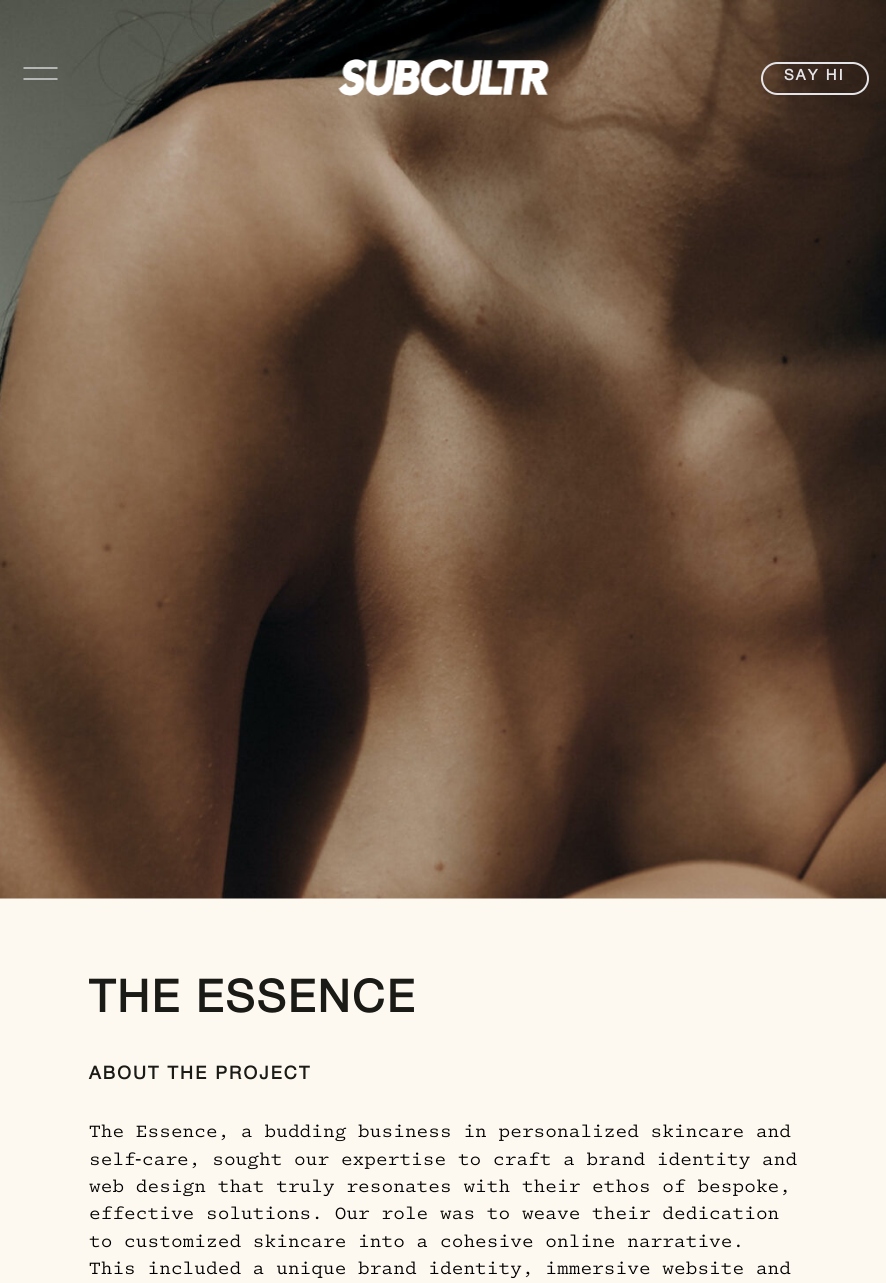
import math
import cairo

surface = cairo.ImageSurface(cairo.FORMAT_RGB24, 886, 1283)
c = cairo.Context(surface)
options = cairo.FontOptions()
options.set_hint_metrics(cairo.HINT_METRICS_OFF)
options.set_hint_style(cairo.HINT_STYLE_NONE)
c.set_font_options(options)
c.set_miter_limit(4)
def C(code):
 c.set_source_rgb(*(v / 255 for v in bytes.fromhex(code[-6:])))
def F(family, size, italic, bold):
 c.select_font_face(family, cairo.FONT_SLANT_ITALIC if italic else cairo.FONT_SLANT_NORMAL, cairo.FONT_WEIGHT_BOLD if bold else cairo.FONT_WEIGHT_NORMAL)
 c.set_font_size(size)
def T(x, y, s):
 c.move_to(x, y)
 c.show_text(s)
def L(x, y, s, letter, word):
 c.move_to(x, y)
 for ch in s:
  c.show_text(ch)
  c.rel_move_to(letter + word * (ch == ' '), 0)
def Q(x, y, w, h, r):
 c.new_sub_path()
 for i, (u, v) in enumerate([(x + w - r, y + h - r), (x + r, y + h - r), (x + r, y + r), (x + w - r, y + r)]):
  c.arc(u, v, r, i * math.pi / 2, (i + 1) * math.pi / 2)
 c.close_path()
def I(path, x, y, w, h):
 c.save()
 c.set_source_surface(cairo.ImageSurface.create_from_png(path), x, y)
 c.rectangle(x, y, w, h)
 c.fill()
 c.restore()
C('fef9f0')
c.paint()
I('2.png',0,0,886,899)
c.new_path()
c.move_to(23.5,68)
c.line_to(57.5,68)
c.move_to(23.5,79)
c.line_to(57.5,79)
C('e5e5e9')
c.set_line_width(1.3)
c.stroke()
I('1.png',338,59,211,37)
Q(762,63,106,31,15.5)
c.set_line_width(2)
c.stroke()
F('Helvetica Neue',15,0,1)
L(784,80,'SAY HI',2.1,0)
F('Helvetica Neue',45,0,1)
C('1a1a16')
L(89,1012,'THE ESSENCE',2.1,0)
F('Helvetica Neue',18,0,1)
L(89,1079,'ABOUT THE PROJECT',2.1,0)
F('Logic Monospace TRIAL',19.5,0,0)
C('000000')
T(89,1137,'The Essence, a budding business in personalized skincare and')
T(89,1165,'self')
F('Liberation Sans',19.5,0,0)
T(135,1165,'-')
F('Logic Monospace TRIAL',19.5,0,0)
T(142,1165,'care, sought our expertise to craft a brand identity and')
T(89,1192,'web design that truly resonates with their ethos of bespoke,')
T(89,1219,'effective solutions. Our role was to weave their dedication')
T(89,1247,'to customized skincare into a cohesive online narrative.')
T(89,1274,'This included a unique brand identity, immersive website and')
surface.write_to_png('o.png')
